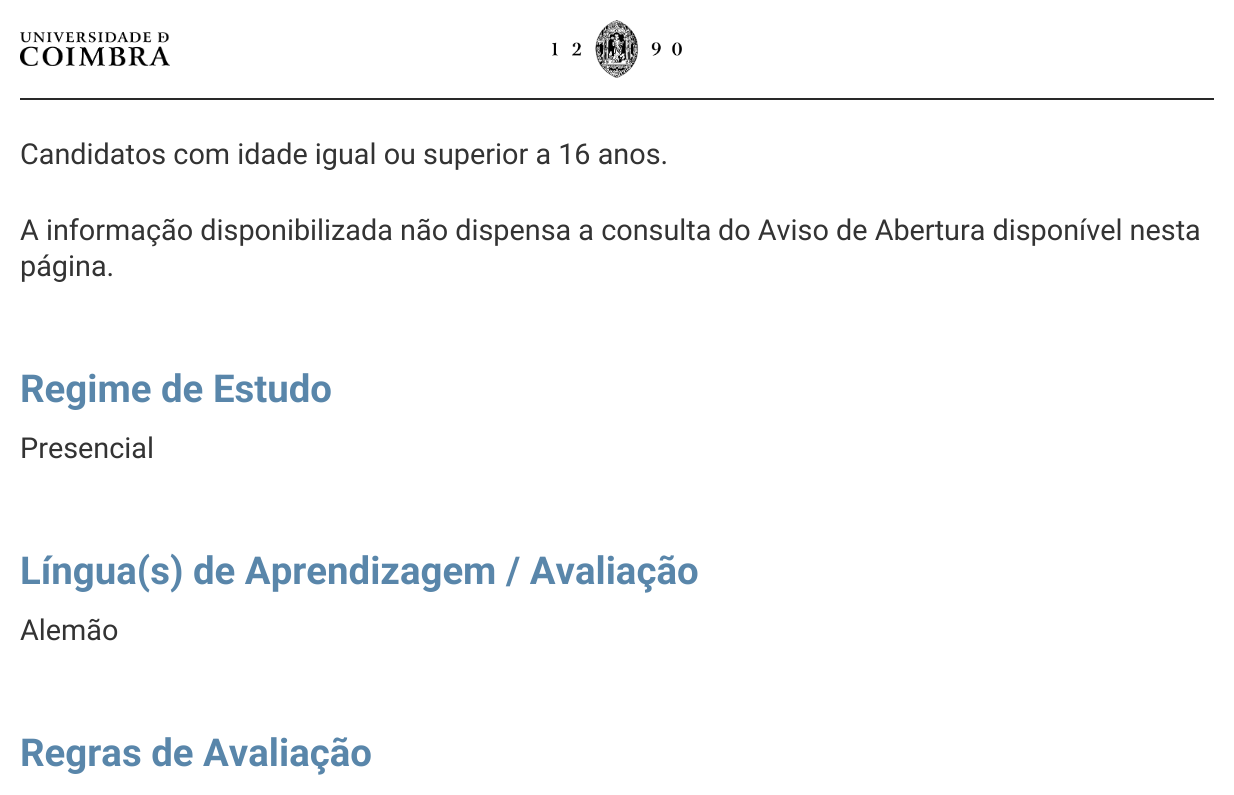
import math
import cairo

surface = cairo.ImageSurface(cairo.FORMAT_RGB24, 1234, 795)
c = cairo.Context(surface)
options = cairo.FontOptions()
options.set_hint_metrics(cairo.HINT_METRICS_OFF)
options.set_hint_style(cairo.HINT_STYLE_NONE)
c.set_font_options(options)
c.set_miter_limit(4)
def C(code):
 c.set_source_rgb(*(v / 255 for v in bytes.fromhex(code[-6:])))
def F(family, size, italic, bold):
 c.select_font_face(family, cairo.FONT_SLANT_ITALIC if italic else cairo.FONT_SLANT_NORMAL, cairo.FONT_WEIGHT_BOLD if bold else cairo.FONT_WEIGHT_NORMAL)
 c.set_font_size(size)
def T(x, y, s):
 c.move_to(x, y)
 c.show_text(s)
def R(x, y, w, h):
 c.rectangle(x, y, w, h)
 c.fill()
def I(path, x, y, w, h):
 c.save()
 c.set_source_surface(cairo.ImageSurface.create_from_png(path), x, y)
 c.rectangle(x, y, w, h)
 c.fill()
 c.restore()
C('ffffff')
c.paint()
C('292929')
R(20,98,1194,2)
I('1.png',20,32,150,34)
I('2.png',552,20,130,58)
F('Roboto',28.8,0,0)
C('333333')
T(20,164,'Candidatos com idade igual ou superior a 16 anos.')
T(20,240,'A informação disponibilizada não dispensa a consulta')
T(718,240,'do Aviso de Abertura disponível nesta')
T(20,276,'página.')
F('Roboto',38.4,0,1)
C('5986aa')
T(20,402,'Regime de Estudo')
F('Roboto',28.8,0,0)
C('333333')
T(20,458,'Presencial')
F('Roboto',38.4,0,1)
C('5986aa')
T(20,584,'Língua(s) de Aprendizagem / Avaliação')
F('Roboto',28.8,0,0)
C('333333')
T(20,640,'Alemão')
F('Roboto',38.4,0,1)
C('5986aa')
T(20,766,'Regras de Avaliação')
surface.write_to_png('o.png')
